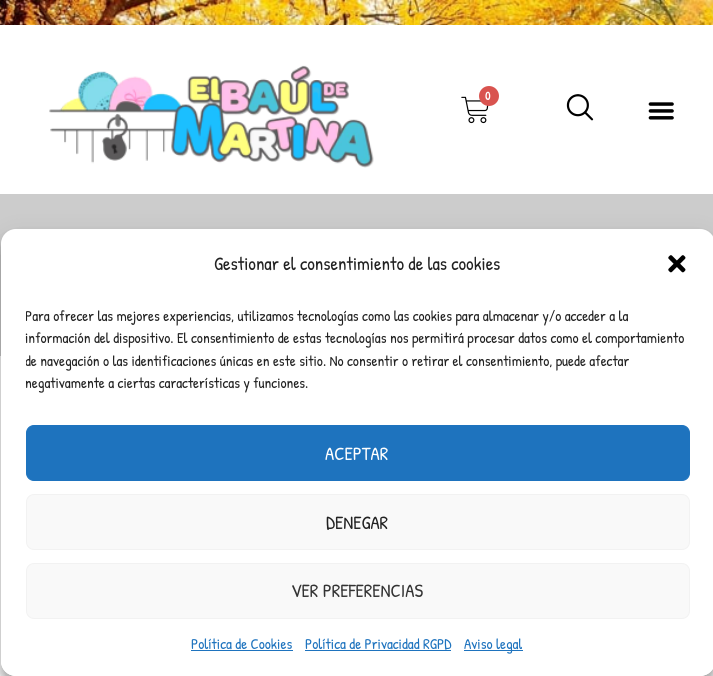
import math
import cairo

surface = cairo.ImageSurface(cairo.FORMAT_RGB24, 713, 676)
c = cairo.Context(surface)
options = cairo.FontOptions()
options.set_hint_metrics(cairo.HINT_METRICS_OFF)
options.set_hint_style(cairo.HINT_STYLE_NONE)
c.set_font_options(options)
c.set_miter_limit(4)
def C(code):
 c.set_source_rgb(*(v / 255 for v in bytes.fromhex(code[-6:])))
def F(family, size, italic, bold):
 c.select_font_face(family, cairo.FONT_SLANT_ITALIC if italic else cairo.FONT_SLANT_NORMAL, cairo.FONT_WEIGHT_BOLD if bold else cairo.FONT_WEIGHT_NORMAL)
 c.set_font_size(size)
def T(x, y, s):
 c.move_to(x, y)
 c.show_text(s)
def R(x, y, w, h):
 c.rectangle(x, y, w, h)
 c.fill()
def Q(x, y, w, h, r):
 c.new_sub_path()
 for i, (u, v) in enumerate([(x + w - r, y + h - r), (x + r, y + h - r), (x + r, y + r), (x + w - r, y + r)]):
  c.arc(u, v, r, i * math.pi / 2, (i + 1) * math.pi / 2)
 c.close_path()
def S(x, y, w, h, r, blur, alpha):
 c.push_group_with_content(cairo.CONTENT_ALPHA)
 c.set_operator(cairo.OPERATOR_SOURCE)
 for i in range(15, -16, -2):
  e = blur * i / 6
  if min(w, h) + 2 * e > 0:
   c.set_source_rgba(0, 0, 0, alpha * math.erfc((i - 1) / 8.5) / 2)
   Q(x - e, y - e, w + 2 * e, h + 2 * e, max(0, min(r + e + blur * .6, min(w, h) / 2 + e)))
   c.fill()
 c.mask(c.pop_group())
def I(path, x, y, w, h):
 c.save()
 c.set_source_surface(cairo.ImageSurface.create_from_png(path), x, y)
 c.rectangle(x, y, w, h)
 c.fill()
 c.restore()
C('ffffff')
c.paint()
I('1.png',0,0,713,25)
I('2.png',49,65,325,103)
I('3.png',461,96,28,28)
C('d9534f')
c.arc(489,96,10,0,2 * math.pi)
c.fill()
F('Patrick Hand',12,0,1)
C('ffffff')
T(485,100,'0')
I('4.png',566,94,28,27)
I('5.png',648,102,26,18)
C('cccccc')
R(0,194,713,162)
c.save()
c.set_fill_rule(cairo.FILL_RULE_EVEN_ODD)
c.new_path()
c.move_to(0,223)
c.line_to(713,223)
c.line_to(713,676)
c.line_to(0,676)
c.close_path()
c.move_to(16,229)
c.line_to(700,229)
c.curve_to(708.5,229,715,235.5,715,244)
c.line_to(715,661)
c.curve_to(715,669.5,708.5,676,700,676)
c.line_to(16,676)
c.curve_to(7.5,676,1,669.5,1,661)
c.line_to(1,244)
c.curve_to(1,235.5,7.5,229,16,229)
c.close_path()
c.clip()
C('000000')
S(1,236,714,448,15,4,.23)
c.restore()
c.save()
c.set_fill_rule(cairo.FILL_RULE_EVEN_ODD)
c.new_path()
c.move_to(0,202)
c.line_to(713,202)
c.line_to(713,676)
c.line_to(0,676)
c.close_path()
c.move_to(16,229)
c.line_to(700,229)
c.curve_to(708.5,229,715,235.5,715,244)
c.line_to(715,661)
c.curve_to(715,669.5,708.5,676,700,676)
c.line_to(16,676)
c.curve_to(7.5,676,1,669.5,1,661)
c.line_to(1,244)
c.curve_to(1,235.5,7.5,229,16,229)
c.close_path()
c.clip()
C('000000')
S(1,241,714,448,15,12.5,.19)
c.restore()
C('ffffff')
Q(1,229,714,447,15)
c.fill()
F('Patrick Hand',18.75,0,0)
C('222222')
T(214,270,'Gestionar el consentimiento de las cookies')
I('6.png',668,255,18,18)
c.save()
c.rectangle(26,304,664,96)
c.clip()
F('Patrick Hand',15,0,0)
T(25,321,'Para ofrecer las mejores experiencias, utilizamos tecnologías como las cookies para almacenar y/o acceder a la')
c.restore()
F('Patrick Hand',15,0,0)
T(25,343,'información del dispositivo. El consentimiento de estas tecnologías nos permitirá procesar datos como el comportamiento')
c.save()
c.rectangle(26,304,664,96)
c.clip()
T(25,366,'de navegación o las identificaciones únicas en este sitio. No consentir o retirar el consentimiento, puede afectar')
c.restore()
T(25,388,'negativamente a ciertas características y funciones.')
C('1e73be')
Q(26.5,425.5,663,55,7.5)
c.fill_preserve()
c.set_line_width(1)
c.stroke()
F('Patrick Hand',18.75,0,0)
C('ffffff')
T(325,460,'ACEPTAR')
C('f9f9f9')
Q(26.5,494.5,663,55,7.5)
c.fill_preserve()
C('f2f2f2')
c.stroke()
C('222222')
T(326,529,'DENEGAR')
C('f9f9f9')
Q(26.5,563.5,663,55,7.5)
c.fill_preserve()
C('f2f2f2')
c.stroke()
C('333333')
T(291,597,'VER PREFERENCIAS')
F('Patrick Hand',15,0,0)
C('1e73be')
T(191,649,'Política de Cookies')
R(191,650,102,1)
T(305,649,'Política de Privacidad RGPD')
R(305,650,146,1)
R(464,650,59,1)
T(464,649,'Aviso legal')
surface.write_to_png('o.png')
